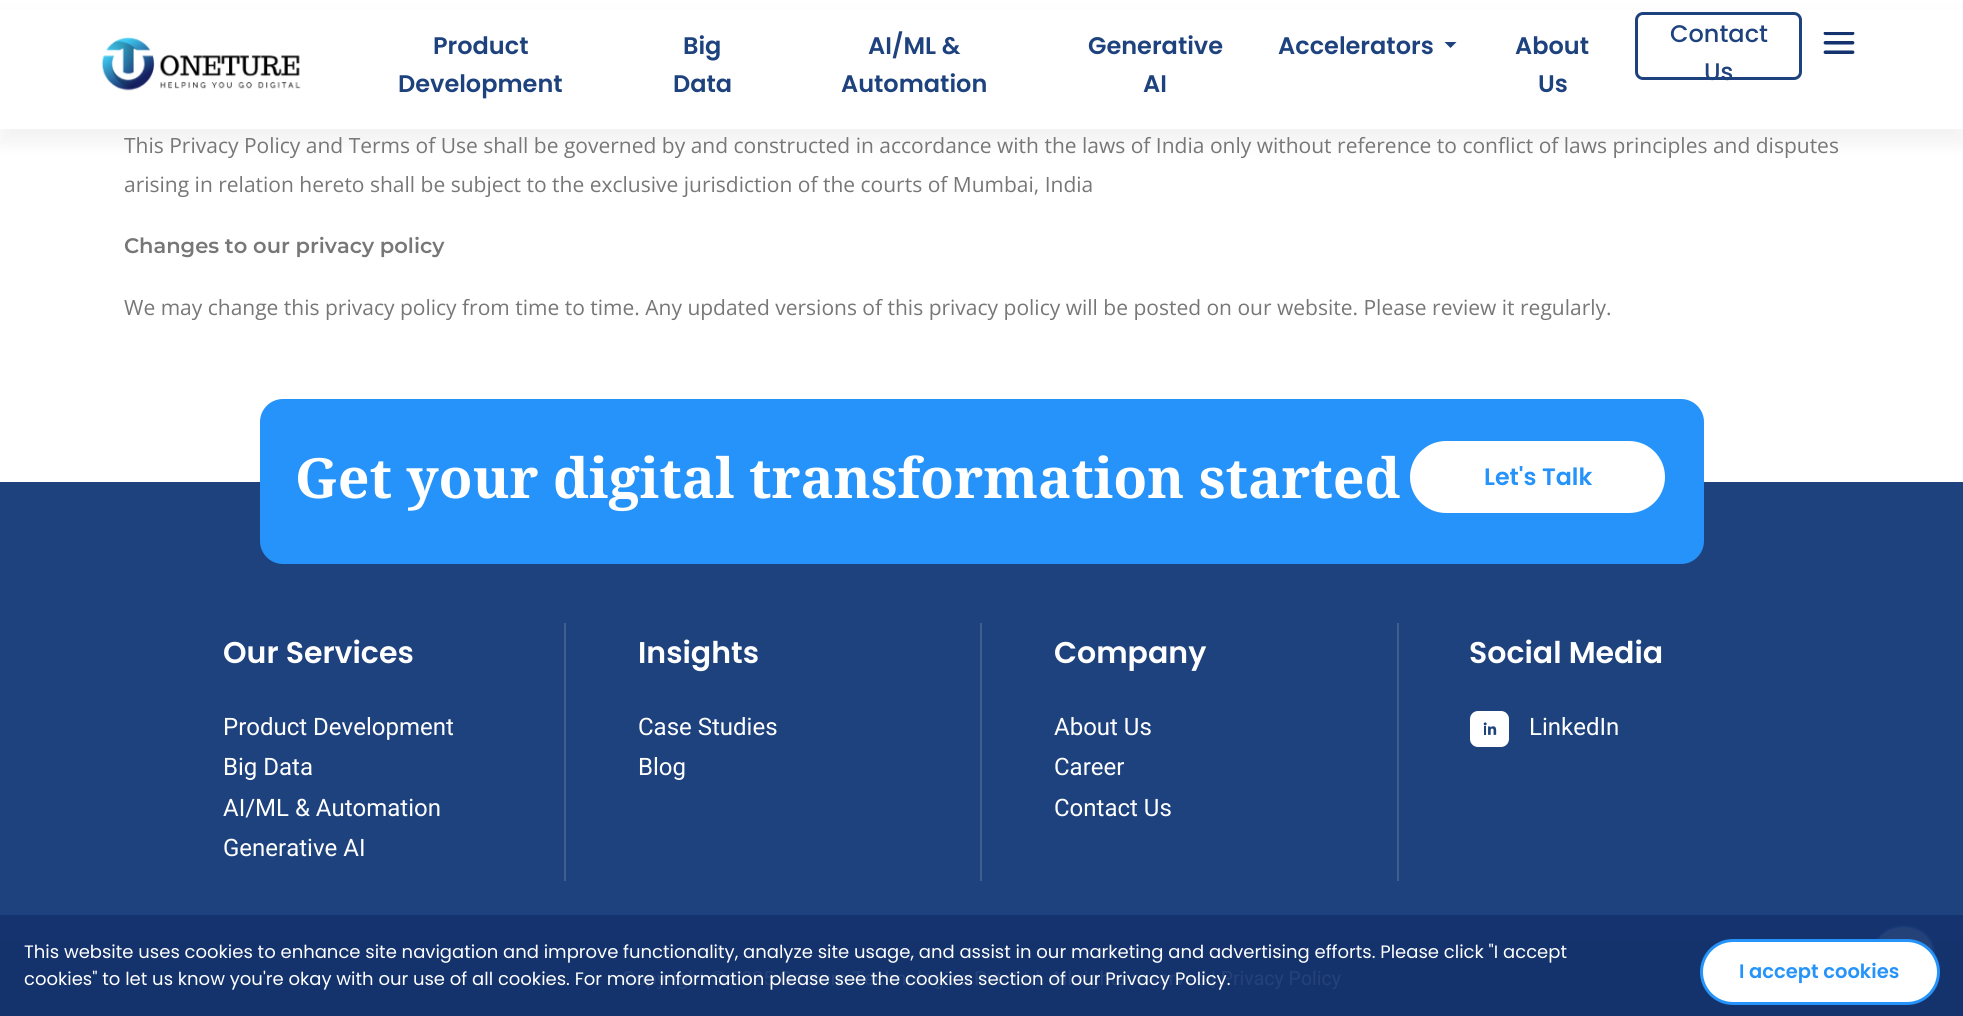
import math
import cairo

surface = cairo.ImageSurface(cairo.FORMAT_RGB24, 1963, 1016)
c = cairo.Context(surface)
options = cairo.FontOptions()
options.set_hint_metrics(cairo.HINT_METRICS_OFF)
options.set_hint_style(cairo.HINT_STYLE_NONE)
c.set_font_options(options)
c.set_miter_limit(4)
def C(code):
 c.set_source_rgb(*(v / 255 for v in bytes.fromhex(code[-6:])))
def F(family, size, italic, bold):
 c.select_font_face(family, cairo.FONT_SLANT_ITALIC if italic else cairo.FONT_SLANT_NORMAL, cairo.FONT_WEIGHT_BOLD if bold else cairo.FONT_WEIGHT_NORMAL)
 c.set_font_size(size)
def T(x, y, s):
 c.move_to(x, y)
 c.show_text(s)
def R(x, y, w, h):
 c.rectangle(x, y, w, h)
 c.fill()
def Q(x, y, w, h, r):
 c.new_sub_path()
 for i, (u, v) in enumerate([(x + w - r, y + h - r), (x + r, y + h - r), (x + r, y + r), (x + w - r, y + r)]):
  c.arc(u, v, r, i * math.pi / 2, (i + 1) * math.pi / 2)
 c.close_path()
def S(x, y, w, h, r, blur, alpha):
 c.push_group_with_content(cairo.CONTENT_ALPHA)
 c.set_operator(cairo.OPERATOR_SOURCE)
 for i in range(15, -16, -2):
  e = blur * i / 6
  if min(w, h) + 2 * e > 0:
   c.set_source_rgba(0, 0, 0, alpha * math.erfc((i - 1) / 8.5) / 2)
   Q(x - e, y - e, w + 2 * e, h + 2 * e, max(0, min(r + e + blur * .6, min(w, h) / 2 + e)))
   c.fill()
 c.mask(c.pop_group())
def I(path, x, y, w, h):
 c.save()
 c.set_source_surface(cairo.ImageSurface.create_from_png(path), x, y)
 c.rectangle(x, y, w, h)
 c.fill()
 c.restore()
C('ffffff')
c.paint()
C('000000')
S(0,15,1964,129,0,7.5,.05)
C('ffffff')
R(0,9,1963,120)
I('1.png',101,37,200,54)
F('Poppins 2 SemiBold',24,0,0)
C('1e427e')
T(433,54,'Product')
T(398,92,'Development')
T(683,54,'Big')
T(673,92,'Data')
T(868,54,'AI/ML &')
T(841,92,'Automation')
T(1088,54,'Generative')
T(1143,92,'AI')
T(1278,54,'Accelerators')
c.new_path()
c.move_to(1444.5,42)
c.line_to(1456.5,42)
c.line_to(1450.5,48)
c.close_path()
c.fill()
T(1515,54,'About')
T(1538,92,'Us')
Q(1636.5,13.5,164,65,6.5)
c.set_line_width(3)
c.stroke()
F('Poppins Medium',24,0,0)
T(1670,42,'Contact')
T(1704,80,'Us')
I('2.png',1823,32,32,22)
F('Open Sans',21,0,0)
C('777777')
T(124,153,'This Privacy Policy and Terms of Use shall be governed by and constructed in accordance with the laws of India only without reference to conflict of laws principles and disputes')
T(124,192,'arising in relation hereto shall be subject to the exclusive jurisdiction of the courts of Mumbai, India')
F('Montserrat SemiBold',21,0,0)
T(124,253,'Changes to our privacy policy')
F('Open Sans',21,0,0)
T(124,315,'We may change this privacy policy from time to time. Any updated versions of this privacy policy will be posted on our website. Please review it regularly.')
C('1e427e')
R(0,482,1963,433)
C('2593f9')
Q(260,399,1444,165,23)
c.fill()
F('Noto Serif',55.5,0,1)
C('ffffff')
T(295,498,'Get your digital transformation started')
Q(1408.5,439.5,258,75,37.5)
c.fill_preserve()
C('2593f9')
c.stroke()
F('Poppins 2 SemiBold',23.75,0,0)
T(1484,485,'Let\'s Talk')
C('15346f')
R(0,915,1963,26)
C('415e90')
R(564,623,2,258)
F('Poppins SemiBold',30,0,0)
C('ffffff')
T(223,663,'Our Services')
F('Roboto',24,0,0)
T(223,735,'Product Development')
T(223,775,'Big Data')
T(223,816,'AI/ML & Automation')
T(223,856,'Generative AI')
C('415e90')
R(980,623,2,258)
F('Poppins SemiBold',30,0,0)
C('ffffff')
T(638,663,'Insights')
F('Roboto',24,0,0)
T(638,735,'Case Studies')
T(638,775,'Blog')
C('415e90')
R(1397,623,2,258)
F('Poppins SemiBold',30,0,0)
C('ffffff')
T(1054,663,'Company')
F('Roboto',24,0,0)
T(1054,735,'About Us')
T(1054,775,'Career')
T(1054,816,'Contact Us')
F('Poppins SemiBold',30,0,0)
T(1469,663,'Social Media')
Q(1470,711,39,36,8)
c.fill()
I('3.png',1483,722,14,13)
F('Roboto',24,0,0)
T(1529,735,'LinkedIn')
C('14336d')
R(0,941,1963,75)
F('Roboto',19.5,0,0)
C('244178')
T(622,985,'Copyright © 2025 Oneture Technologies Pvt. Ltd. All rights reserved | Privacy Policy')
c.new_path()
c.move_to(1872,956)
c.curve_to(1872,916,1935,916,1935,956)
c.curve_to(1935,995,1872,995,1872,956)
c.close_path()
c.fill()
c.new_path()
c.move_to(1873,955.5)
c.curve_to(1873,916.5,1934,916.5,1934,955.5)
c.curve_to(1934,994.5,1873,994.5,1873,955.5)
c.close_path()
C('163a78')
c.set_line_width(1.5)
c.stroke()
F('Poppins',18,0,0)
C('ffffff')
T(24,958,'This website uses cookies to enhance site navigation and improve functionality, analyze site usage, and assist in our marketing and advertising efforts. Please click "I accept')
T(24,985,'cookies" to let us know you\'re okay with our use of all cookies. For more information please see the cookies section of our Privacy Policy.')
Q(1701.5,940.5,237,63,31.5)
c.fill_preserve()
C('2593f9')
c.set_line_width(3)
c.stroke()
F('Poppins 2 SemiBold',19.5,0,0)
T(1739,978,'I accept cookies')
surface.write_to_png('o.png')
